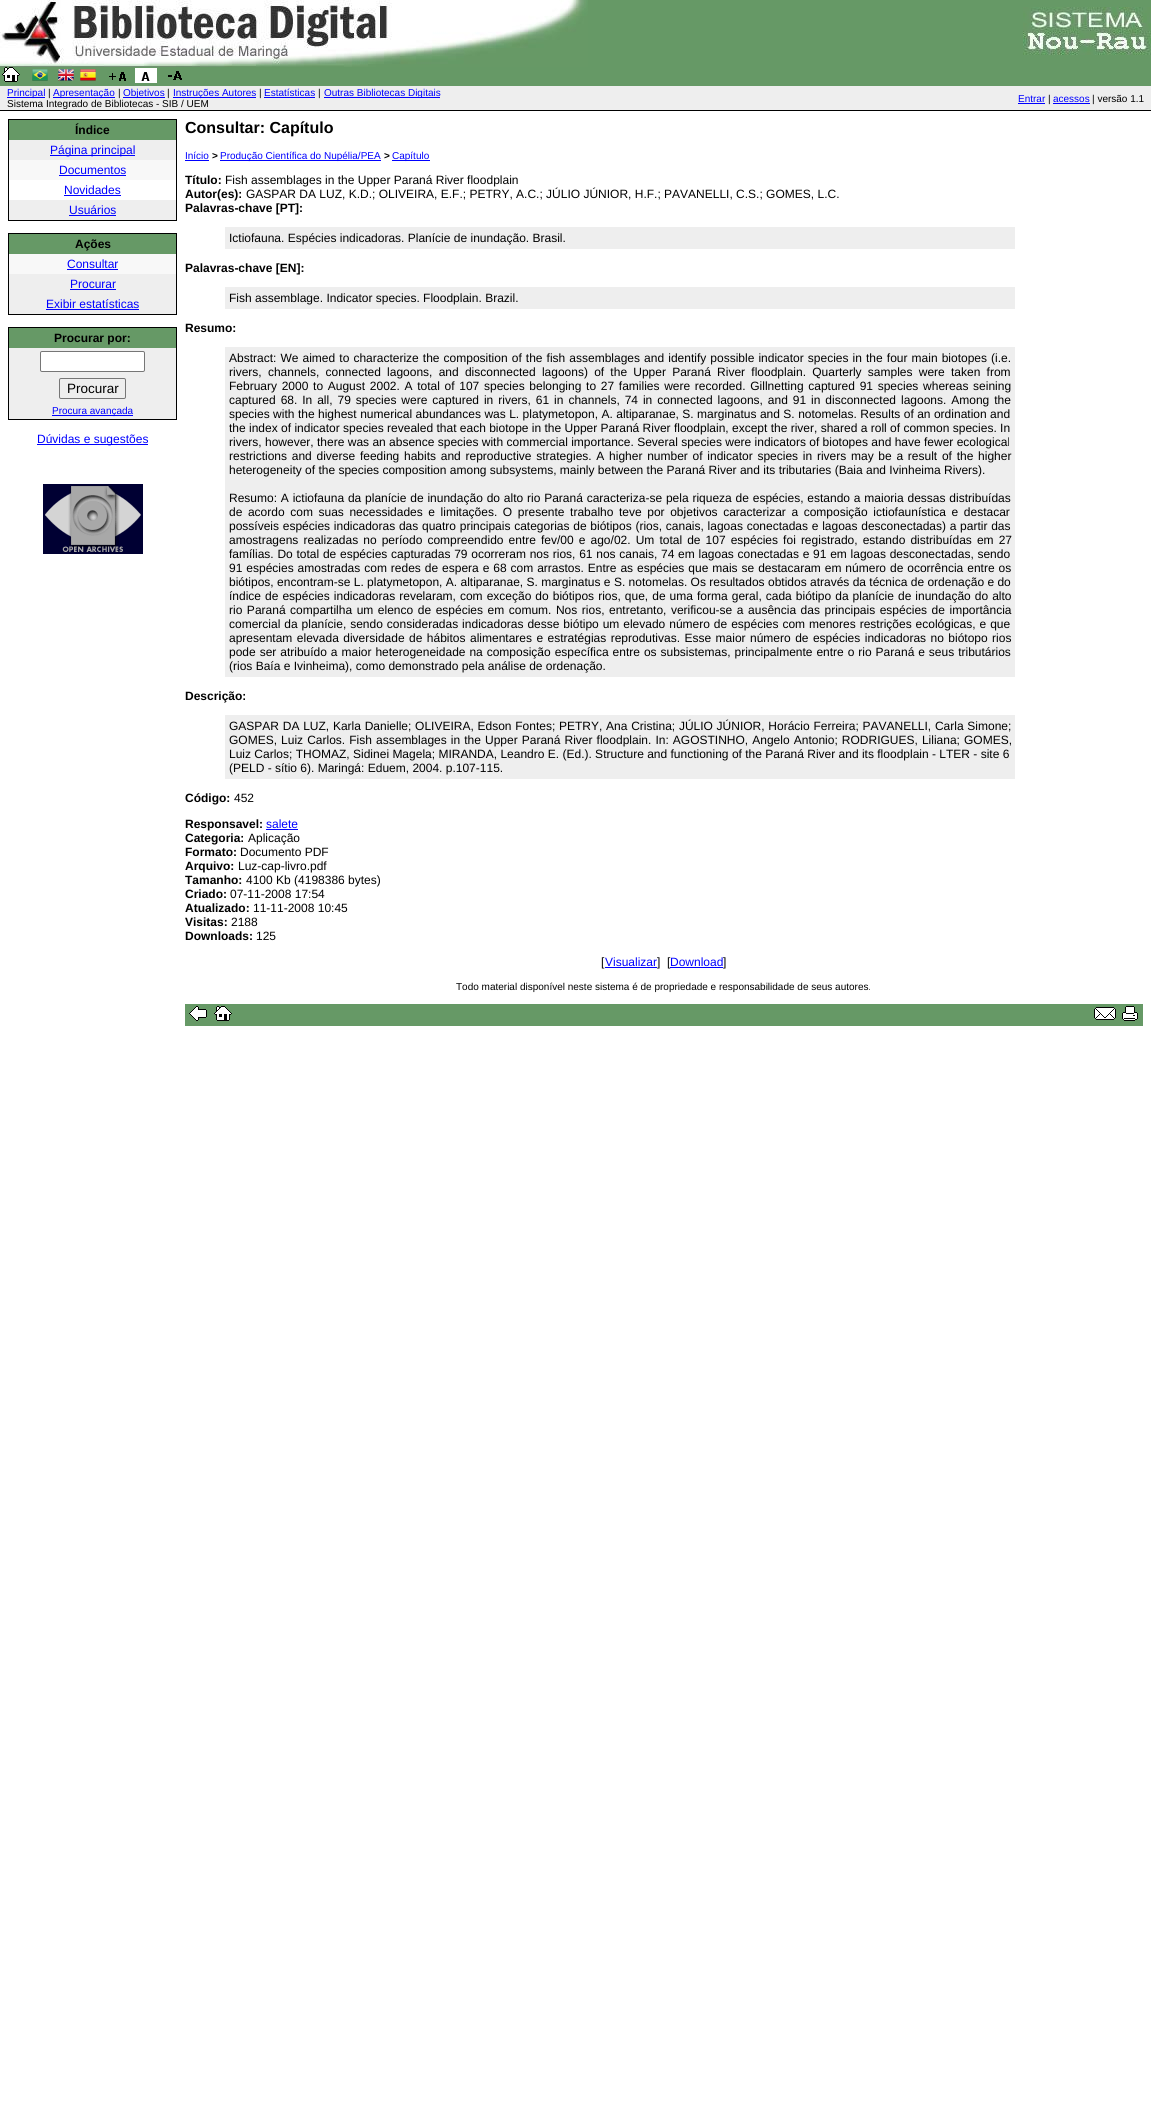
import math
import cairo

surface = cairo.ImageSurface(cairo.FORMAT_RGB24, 1151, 2113)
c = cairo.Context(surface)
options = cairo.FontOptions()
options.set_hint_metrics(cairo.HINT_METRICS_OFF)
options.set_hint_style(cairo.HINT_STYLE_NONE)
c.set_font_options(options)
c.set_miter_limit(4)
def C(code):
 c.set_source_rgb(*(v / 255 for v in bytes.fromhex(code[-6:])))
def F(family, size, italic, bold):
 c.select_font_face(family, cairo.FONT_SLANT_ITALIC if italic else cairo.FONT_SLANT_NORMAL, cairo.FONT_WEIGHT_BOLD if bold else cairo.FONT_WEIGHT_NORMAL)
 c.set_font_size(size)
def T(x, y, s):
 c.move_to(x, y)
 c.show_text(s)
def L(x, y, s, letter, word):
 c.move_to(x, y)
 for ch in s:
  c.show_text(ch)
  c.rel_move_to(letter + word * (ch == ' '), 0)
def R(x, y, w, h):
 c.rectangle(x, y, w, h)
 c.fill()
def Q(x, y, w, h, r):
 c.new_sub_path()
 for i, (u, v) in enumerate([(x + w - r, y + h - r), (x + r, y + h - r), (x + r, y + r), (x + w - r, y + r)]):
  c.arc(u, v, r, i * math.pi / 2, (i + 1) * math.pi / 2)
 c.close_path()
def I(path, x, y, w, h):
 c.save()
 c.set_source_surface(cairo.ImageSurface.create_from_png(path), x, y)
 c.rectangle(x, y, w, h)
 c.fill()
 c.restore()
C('ffffff')
c.paint()
C('669966')
R(588,0,563,67)
I('1.png',0,0,588,67)
I('2.png',1023,7,128,48)
R(0,67,1151,19)
I('3.png',2,67,18,15)
I('4.png',32,69,16,12)
I('5.png',58,69,16,12)
I('6.png',80,69,16,12)
I('7.png',109,72,17,9)
I('8.png',135,68,22,15)
I('9.png',168,71,14,9)
C('eeeeee')
R(0,86,1151,24)
C('0000ff')
R(7,97,38,1)
F('Liberation Sans',10,0,0)
T(7,96,'Principal')
C('000000')
T(48,96,'|')
C('0000ff')
R(53,97,62,1)
T(53,96,'Apresentação')
C('000000')
T(118,96,'|')
C('0000ff')
R(123,97,42,1)
T(123,96,'Objetivos')
C('000000')
T(167,96,'|')
C('0000ff')
R(173,97,83,1)
T(173,96,'Instruções Autores')
C('000000')
T(259,96,'|')
C('0000ff')
T(264,96,'Estatísticas')
R(264,97,51,1)
C('000000')
T(318,96,'|')
C('0000ff')
R(324,97,116,1)
T(324,96,'Outras Bibliotecas Digitais')
C('000000')
T(7,107,'Sistema Integrado de Bibliotecas - SIB / UEM')
C('0000ff')
T(1018,102,'Entrar')
R(1018,103,27,1)
C('000000')
T(1048,102,'|')
C('0000ff')
T(1053,102,'acessos')
R(1053,103,37,1)
C('000000')
T(1092,102,'| versão 1.1')
R(0,110,1151,1)
R(8,119,169,102)
C('669966')
R(9,120,167,20)
F('Liberation Sans',12,0,1)
C('000000')
T(75,134,'Índice')
C('eeeeee')
R(9,140,167,20)
C('0000ff')
R(50,155,85,1)
F('Liberation Sans',12,0,0)
T(50,154,'Página principal')
C('f8f8f8')
R(9,160,167,20)
C('0000ff')
T(59,174,'Documentos')
R(59,175,67,1)
C('ffffff')
R(9,180,167,20)
C('0000ff')
T(64,194,'Novidades')
R(64,195,57,1)
C('eeeeee')
R(9,200,167,20)
C('0000ff')
T(69,214,'Usuários')
R(69,215,47,1)
C('000000')
R(8,233,169,82)
C('669966')
R(9,234,167,20)
F('Liberation Sans',12,0,1)
C('000000')
T(75,248,'Ações')
C('f8f8f8')
R(9,254,167,20)
F('Liberation Sans',12,0,0)
C('0000ff')
T(67,268,'Consultar')
R(67,269,51,1)
C('eeeeee')
R(9,274,167,40)
C('0000ff')
T(70,288,'Procurar')
R(70,289,46,1)
T(46,308,'Exibir estatísticas')
R(46,309,93,1)
C('000000')
R(8,327,169,93)
C('669966')
R(9,328,167,20)
F('Liberation Sans',12,0,1)
C('000000')
T(54,342,'Procurar por:')
C('eeeeee')
R(9,348,167,71)
C('ffffff')
Q(40.5,351.5,104,20,1.5)
c.fill_preserve()
C('767676')
c.set_line_width(1)
c.stroke()
Q(59.5,378.5,66,20,1.5)
c.stroke()
F('Liberation Sans',13.5,0,0)
C('000000')
T(67,393,'Procurar')
C('0000ff')
R(52,415,81,1)
F('Liberation Sans',10,0,0)
T(52,414,'Procura avançada')
R(37,444,111,1)
F('Liberation Sans',12,0,0)
T(37,443,'Dúvidas e sugestões')
I('10.png',43,484,100,70)
F('Liberation Sans',16,0,1)
C('000000')
T(185,133,'Consultar: Capítulo')
F('Liberation Sans',10,0,0)
C('0000ff')
T(185,159,'Início')
R(185,160,24,1)
F('Liberation Sans',10,0,1)
C('000000')
T(212,159,'>')
C('0000ff')
R(220,160,161,1)
F('Liberation Sans',10,0,0)
T(220,159,'Produção Científica do Nupélia/PEA')
F('Liberation Sans',10,0,1)
C('000000')
T(384,159,'>')
C('0000ff')
R(392,160,38,1)
F('Liberation Sans',10,0,0)
T(392,159,'Capítulo')
F('Liberation Sans',12,0,1)
C('000000')
T(185,184,'Título:')
F('Liberation Sans',12,0,0)
T(225,184,'Fish assemblages in the Upper Paraná River floodplain')
F('Liberation Sans',12,0,1)
T(185,198,'Autor(es):')
F('Liberation Sans',12,0,0)
T(246,198,'GASPAR DA LUZ, K.D.; OLIVEIRA, E.F.; PETRY, A.C.; JÚLIO JÚNIOR, H.F.; PAVANELLI, C.S.; GOMES, L.C.')
F('Liberation Sans',12,0,1)
T(185,212,'Palavras-chave [PT]:')
C('eeeeee')
R(225,227,790,22)
F('Liberation Sans',12,0,0)
C('000000')
T(229,242,'Ictiofauna. Espécies indicadoras. Planície de inundação. Brasil.')
F('Liberation Sans',12,0,1)
T(185,272,'Palavras-chave [EN]:')
C('eeeeee')
R(225,287,790,22)
F('Liberation Sans',12,0,0)
C('000000')
T(229,302,'Fish assemblage. Indicator species. Floodplain. Brazil.')
F('Liberation Sans',12,0,1)
T(185,332,'Resumo:')
C('eeeeee')
R(225,347,790,330)
F('Liberation Sans',12,0,0)
C('000000')
L(229,362,'Abstract: We aimed to characterize the composition of the fish assemblages and identify possible indicator species in the four main biotopes (i.e.',0,.75)
L(229,376,'rivers, channels, connected lagoons, and disconnected lagoons) of the Upper Paraná River floodplain. Quarterly samples were taken from',0,2.9)
L(229,390,'February 2000 to August 2002. A total of 107 species belonging to 27 families were recorded. Gillnetting captured 91 species whereas seining',0,1.35)
L(229,404,'captured 68. In all, 79 species were captured in rivers, 61 in channels, 74 in connected lagoons, and 91 in disconnected lagoons. Among the',0,1.6)
L(229,418,'species with the highest numerical abundances was L. platymetopon, A. altiparanae, S. marginatus and S. notomelas. Results of an ordination and',0,.1)
T(229,432,'the index of indicator species revealed that each biotope in the Upper Paraná River floodplain, except the river, shared a roll of common species. In')
T(229,446,'rivers, however, there was an absence species with commercial importance. Several species were indicators of biotopes and have fewer ecological')
L(229,460,'restrictions and diverse feeding habits and reproductive strategies. A higher number of indicator species in rivers may be a result of the higher',0,1.4)
T(229,474,'heterogeneity of the species composition among subsystems, mainly between the Paraná River and its tributaries (Baia and Ivinheima Rivers).')
L(229,502,'Resumo: A ictiofauna da planície de inundação do alto rio Paraná caracteriza-se pela riqueza de espécies, estando a maioria dessas distribuídas',0,.5)
L(229,516,'de acordo com suas necessidades e limitações. O presente trabalho teve por objetivos caracterizar a composição ictiofaunística e destacar',0,2.25)
L(229,530,'possíveis espécies indicadoras das quatro principais categorias de biótipos (rios, canais, lagoas conectadas e lagoas desconectadas) a partir das',0,.4)
L(229,544,'amostragens realizadas no período compreendido entre fev/00 e ago/02. Um total de 107 espécies foi registrado, estando distribuídas em 27',0,1.75)
L(229,558,'famílias. Do total de espécies capturadas 79 ocorreram nos rios, 61 nos canais, 74 em lagoas conectadas e 91 em lagoas desconectadas, sendo',0,.4)
L(229,572,'91 espécies amostradas com redes de espera e 68 com arrastos. Entre as espécies que mais se destacaram em número de ocorrência entre os',0,.6)
T(229,586,'biótipos, encontram-se L. platymetopon, A. altiparanae, S. marginatus e S. notomelas. Os resultados obtidos através da técnica de ordenação e do')
L(229,600,'índice de espécies indicadoras revelaram, com exceção do biótipos rios, que, de uma forma geral, cada biótipo da planície de inundação do alto',0,.7)
L(229,614,'rio Paraná compartilha um elenco de espécies em comum. Nos rios, entretanto, verificou-se a ausência das principais espécies de importância',0,1.2)
L(229,628,'comercial da planície, sendo consideradas indicadoras desse biótipo um elevado número de espécies com menores restrições ecológicas, e que',0,.6)
L(229,642,'apresentam elevada diversidade de hábitos alimentares e estratégias reprodutivas. Esse maior número de espécies indicadoras no biótopo rios',0,1.1)
L(229,656,'pode ser atribuído a maior heterogeneidade na composição específica entre os subsistemas, principalmente entre o rio Paraná e seus tributários',0,.6)
T(229,670,'(rios Baía e Ivinheima), como demonstrado pela análise de ordenação.')
F('Liberation Sans',12,0,1)
T(185,700,'Descrição:')
C('eeeeee')
R(225,715,790,64)
F('Liberation Sans',12,0,0)
C('000000')
L(229,730,'GASPAR DA LUZ, Karla Danielle; OLIVEIRA, Edson Fontes; PETRY, Ana Cristina; JÚLIO JÚNIOR, Horácio Ferreira; PAVANELLI, Carla Simone;',0,.4)
L(229,744,'GOMES, Luiz Carlos. Fish assemblages in the Upper Paraná River floodplain. In: AGOSTINHO, Angelo Antonio; RODRIGUES, Liliana; GOMES,',0,.75)
T(229,758,'Luiz Carlos; THOMAZ, Sidinei Magela; MIRANDA, Leandro E. (Ed.). Structure and functioning of the Paraná River and its floodplain - LTER - site 6')
T(229,772,'(PELD - sítio 6). Maringá: Eduem, 2004. p.107-115.')
F('Liberation Sans',12,0,1)
T(185,802,'Código:')
F('Liberation Sans',12,0,0)
T(234,802,'452')
F('Liberation Sans',12,0,1)
T(185,828,'Responsavel:')
F('Liberation Sans',12,0,0)
C('0000ff')
T(266,828,'salete')
R(266,829,32,1)
F('Liberation Sans',12,0,1)
C('000000')
T(185,842,'Categoria:')
F('Liberation Sans',12,0,0)
T(248,842,'Aplicação')
F('Liberation Sans',12,0,1)
T(185,856,'Formato:')
F('Liberation Sans',12,0,0)
T(240,856,'Documento PDF')
F('Liberation Sans',12,0,1)
T(185,870,'Arquivo:')
F('Liberation Sans',12,0,0)
T(238,870,'Luz-cap-livro.pdf')
F('Liberation Sans',12,0,1)
T(185,884,'Tamanho:')
F('Liberation Sans',12,0,0)
T(246,884,'4100 Kb (4198386 bytes)')
F('Liberation Sans',12,0,1)
T(185,898,'Criado:')
F('Liberation Sans',12,0,0)
T(230,898,'07-11-2008 17:54')
F('Liberation Sans',12,0,1)
T(185,912,'Atualizado:')
F('Liberation Sans',12,0,0)
T(253,912,'11-11-2008 10:45')
F('Liberation Sans',12,0,1)
T(185,926,'Visitas:')
F('Liberation Sans',12,0,0)
T(231,926,'2188')
F('Liberation Sans',12,0,1)
T(185,940,'Downloads:')
F('Liberation Sans',12,0,0)
T(256,940,'125')
T(601,966,'[')
C('0000ff')
T(605,966,'Visualizar')
R(605,967,52,1)
C('000000')
T(657,966,']  [')
C('0000ff')
T(670,966,'Download')
R(670,967,53,1)
C('000000')
T(723,966,']')
F('Liberation Sans',10,0,0)
T(456,990,'Todo material disponível neste sistema é de propriedade e responsabilidade de seus autores.')
C('669966')
R(185,1004,958,22)
I('11.png',189,1006,18,15)
I('3.png',214,1006,18,15)
I('12.png',1094,1007,22,13)
I('13.png',1122,1006,16,15)
surface.write_to_png('o.png')
